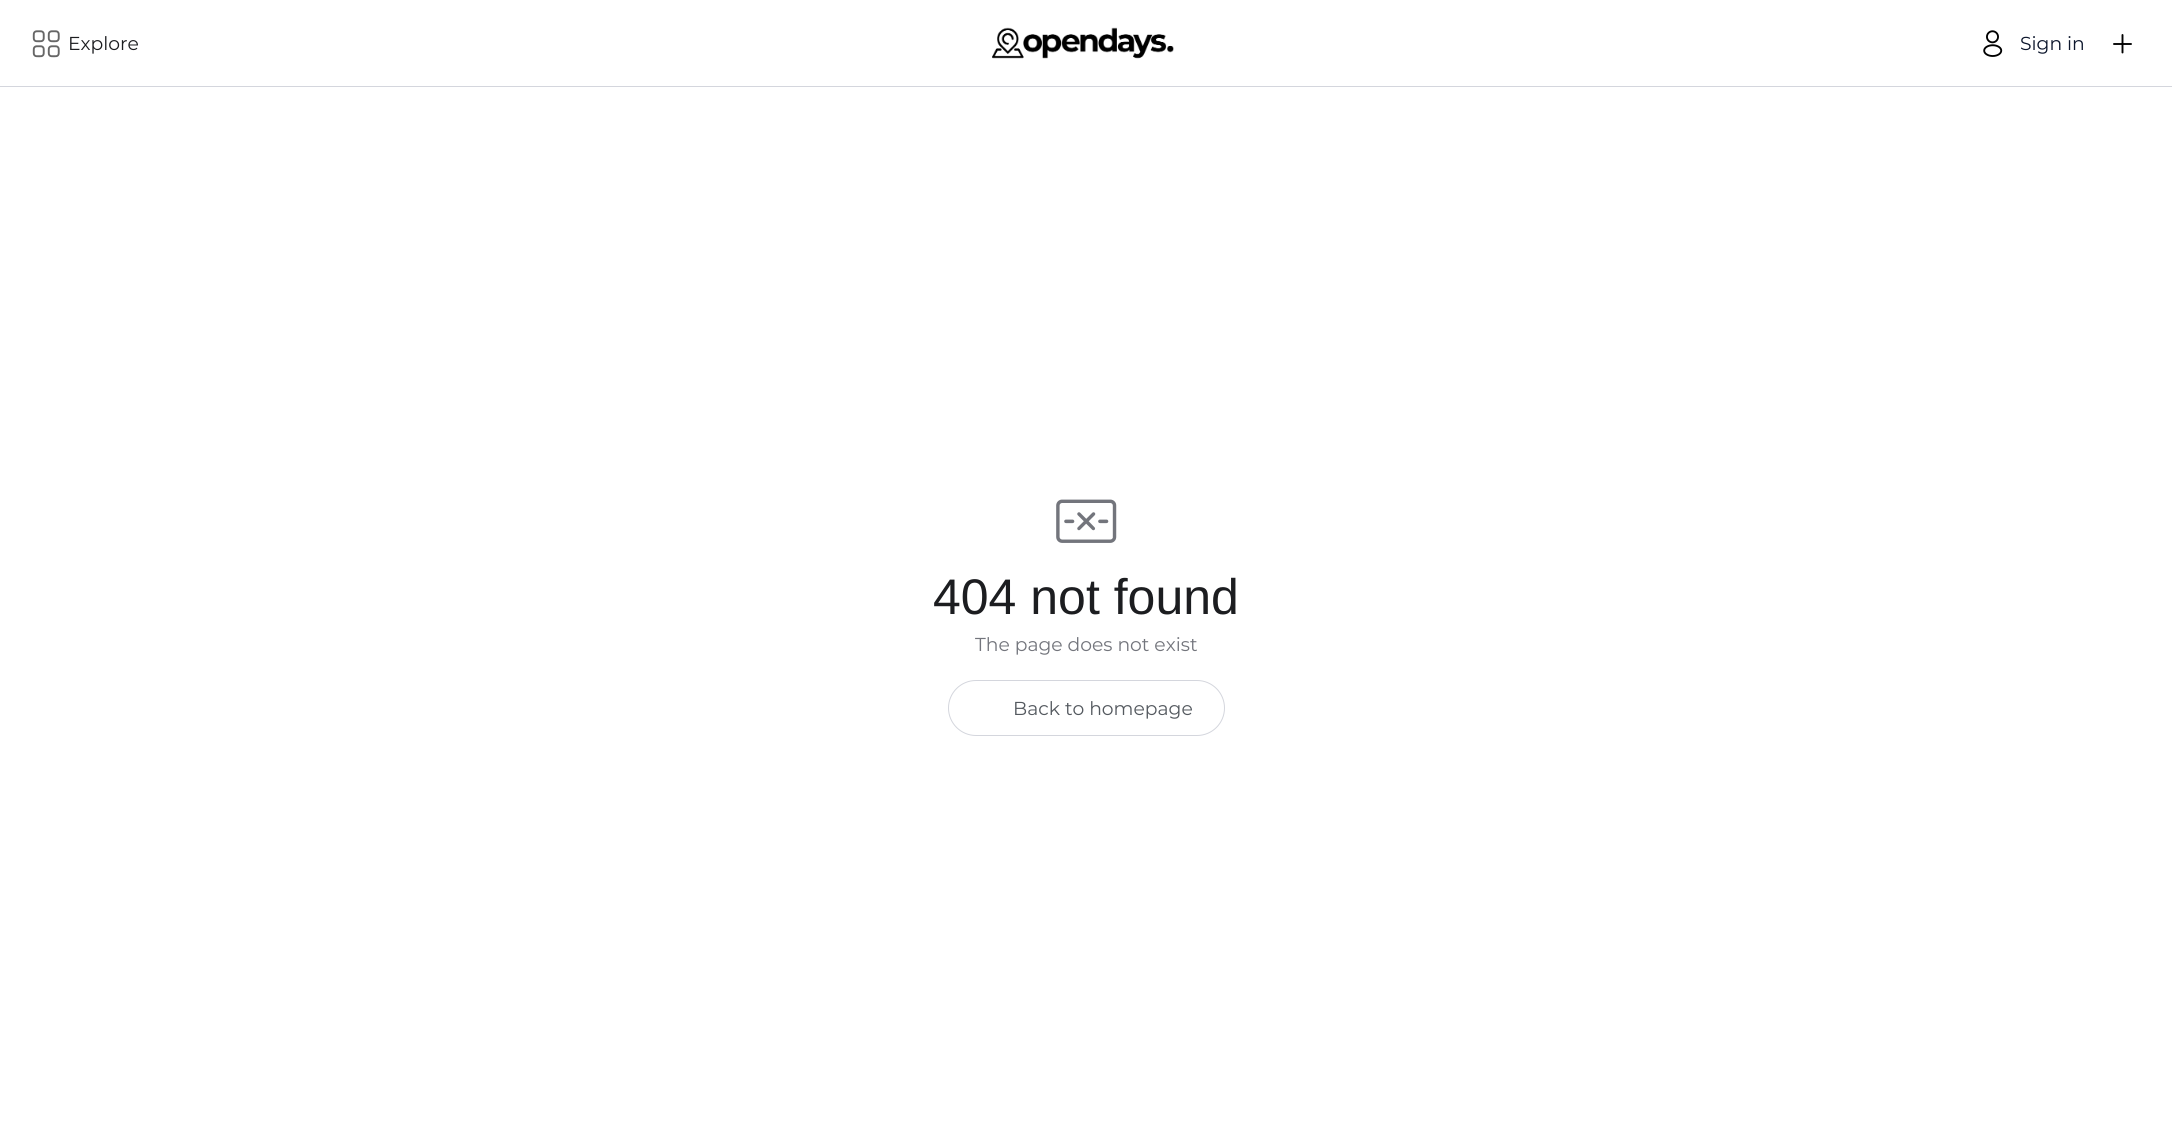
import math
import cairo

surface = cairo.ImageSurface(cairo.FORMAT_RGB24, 2172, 1138)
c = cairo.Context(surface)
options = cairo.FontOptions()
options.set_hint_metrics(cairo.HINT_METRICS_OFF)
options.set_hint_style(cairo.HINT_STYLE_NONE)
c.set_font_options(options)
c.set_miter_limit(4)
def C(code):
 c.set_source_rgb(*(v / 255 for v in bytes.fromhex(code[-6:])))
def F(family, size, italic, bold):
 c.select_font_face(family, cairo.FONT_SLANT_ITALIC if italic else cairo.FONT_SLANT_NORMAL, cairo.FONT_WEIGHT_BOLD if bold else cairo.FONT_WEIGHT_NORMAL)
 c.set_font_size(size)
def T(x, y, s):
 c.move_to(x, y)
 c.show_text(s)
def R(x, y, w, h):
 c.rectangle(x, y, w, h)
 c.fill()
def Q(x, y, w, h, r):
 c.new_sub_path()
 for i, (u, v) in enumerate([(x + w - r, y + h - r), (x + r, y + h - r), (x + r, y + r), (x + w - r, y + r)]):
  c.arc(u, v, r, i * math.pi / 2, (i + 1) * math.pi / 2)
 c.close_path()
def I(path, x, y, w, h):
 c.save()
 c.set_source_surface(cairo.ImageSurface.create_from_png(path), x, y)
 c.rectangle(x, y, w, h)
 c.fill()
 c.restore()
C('ffffff')
c.paint()
C('d4d6dd')
R(0,86,2172,1)
I('1.png',32,30,28,28)
F('Montserrat',18.75,0,0)
C('1c1d20')
T(68,50,'Explore')
I('2.png',992,27,182,32)
I('3.png',1983,30,20,27)
C('0c162c')
T(2020,50,'Sign in')
c.new_path()
c.move_to(2122.5,35)
c.line_to(2122.5,44)
c.move_to(2122.5,44)
c.line_to(2122.5,52.5)
c.move_to(2122.5,44)
c.line_to(2131,44)
c.move_to(2122.5,44)
c.line_to(2114,44)
C('000000')
c.set_line_width(1.9)
c.set_line_cap(cairo.LINE_CAP_ROUND)
c.set_line_join(cairo.LINE_JOIN_ROUND)
c.stroke()
I('4.png',1056,499,61,44)
F('Liberation Sans',50,0,0)
C('1c1d20')
T(933,614,'404 not found')
F('Montserrat',18.75,0,0)
C('73757c')
T(975,651,'The page does not exist')
Q(948.5,680.5,276,55,27.5)
C('d4d6dd')
c.set_line_width(1)
c.set_line_cap(cairo.LINE_CAP_BUTT)
c.set_line_join(cairo.LINE_JOIN_MITER)
c.stroke()
C('54595f')
T(1013,715,'Back to homepage')
surface.write_to_png('o.png')
